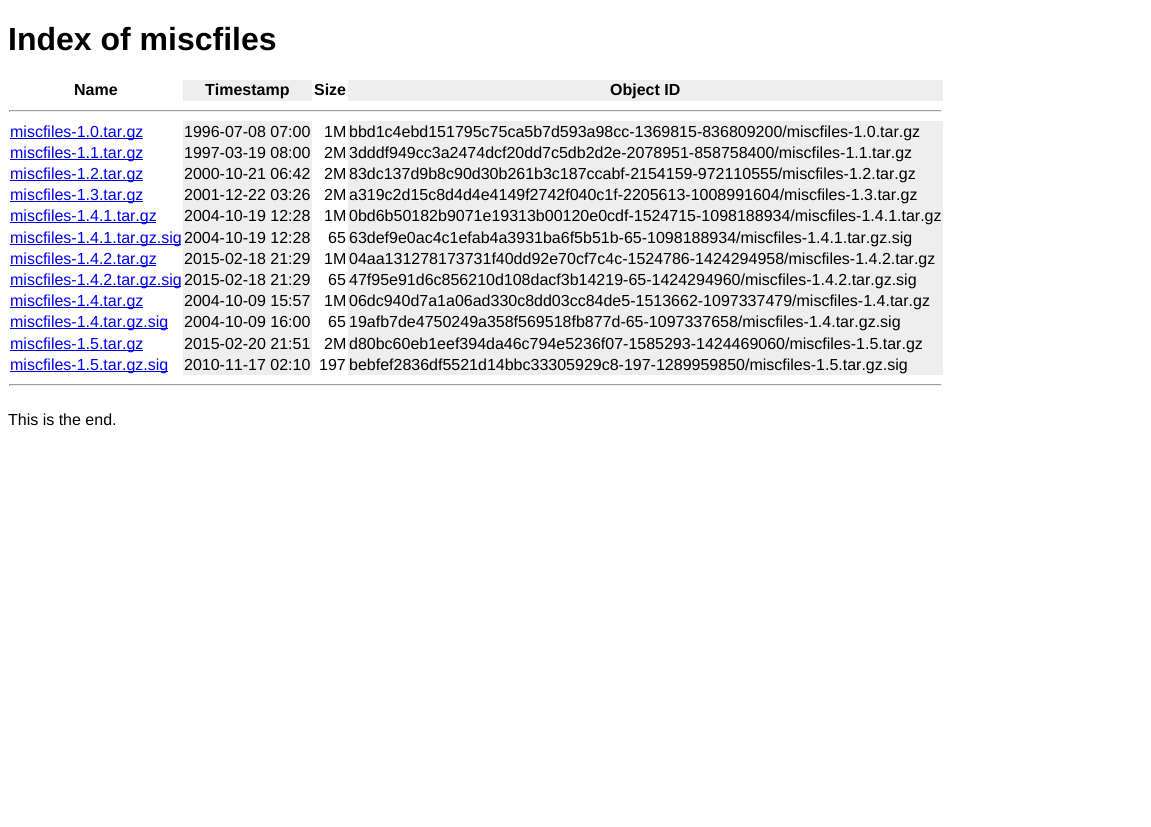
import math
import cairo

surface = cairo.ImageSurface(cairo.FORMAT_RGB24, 1151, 827)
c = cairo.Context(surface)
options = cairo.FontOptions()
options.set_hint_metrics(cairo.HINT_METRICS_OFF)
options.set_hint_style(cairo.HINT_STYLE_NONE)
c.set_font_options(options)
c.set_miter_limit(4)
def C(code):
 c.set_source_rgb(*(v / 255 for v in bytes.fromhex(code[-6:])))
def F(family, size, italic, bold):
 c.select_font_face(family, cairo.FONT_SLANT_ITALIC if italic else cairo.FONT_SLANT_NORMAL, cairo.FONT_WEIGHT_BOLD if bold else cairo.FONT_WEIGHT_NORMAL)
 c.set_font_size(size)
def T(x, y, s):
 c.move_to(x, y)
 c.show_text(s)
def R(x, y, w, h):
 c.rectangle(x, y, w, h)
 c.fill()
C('ffffff')
c.paint()
F('Liberation Sans',32,0,1)
C('000000')
T(8,50,'Index of miscfiles')
F('Liberation Sans',16,0,1)
T(74,95,'Name')
C('eeeeee')
R(183,80,129,21)
C('000000')
T(205,95,'Timestamp')
T(314,95,'Size')
C('eeeeee')
R(348,80,595,21)
C('000000')
T(610,95,'Object ID')
C('9f9f9f')
R(9,110,933,1)
C('eeeeee')
R(941,110,1,2)
R(9,111,933,1)
C('9f9f9f')
R(9,110,1,2)
C('0000ee')
R(10,138,133,1)
F('Liberation Sans',16,0,0)
T(10,137,'miscfiles-1.0.tar.gz')
C('eeeeee')
R(183,121,129,254)
C('000000')
T(184,137,'1996-07-08 07:00')
T(324,137,'1M')
C('eeeeee')
R(348,121,595,254)
C('000000')
T(349,137,'bbd1c4ebd151795c75ca5b7d593a98cc-1369815-836809200/miscfiles-1.0.tar.gz')
C('0000ee')
R(10,159,133,1)
T(10,158,'miscfiles-1.1.tar.gz')
C('000000')
T(184,158,'1997-03-19 08:00')
T(324,158,'2M')
T(349,158,'3dddf949cc3a2474dcf20dd7c5db2d2e-2078951-858758400/miscfiles-1.1.tar.gz')
C('0000ee')
R(10,180,133,1)
T(10,179,'miscfiles-1.2.tar.gz')
C('000000')
T(184,179,'2000-10-21 06:42')
T(324,179,'2M')
T(349,179,'83dc137d9b8c90d30b261b3c187ccabf-2154159-972110555/miscfiles-1.2.tar.gz')
C('0000ee')
R(10,201,133,1)
T(10,200,'miscfiles-1.3.tar.gz')
C('000000')
T(184,200,'2001-12-22 03:26')
T(324,200,'2M')
T(349,200,'a319c2d15c8d4d4e4149f2742f040c1f-2205613-1008991604/miscfiles-1.3.tar.gz')
C('0000ee')
R(10,222,146,1)
T(10,221,'miscfiles-1.4.1.tar.gz')
C('000000')
T(184,221,'2004-10-19 12:28')
T(324,221,'1M')
T(349,221,'0bd6b50182b9071e19313b00120e0cdf-1524715-1098188934/miscfiles-1.4.1.tar.gz')
C('0000ee')
R(10,244,171,1)
T(10,243,'miscfiles-1.4.1.tar.gz.sig')
C('000000')
T(184,243,'2004-10-19 12:28')
T(328,243,'65')
T(349,243,'63def9e0ac4c1efab4a3931ba6f5b51b-65-1098188934/miscfiles-1.4.1.tar.gz.sig')
C('0000ee')
R(10,265,146,1)
T(10,264,'miscfiles-1.4.2.tar.gz')
C('000000')
T(184,264,'2015-02-18 21:29')
T(324,264,'1M')
T(349,264,'04aa131278173731f40dd92e70cf7c4c-1524786-1424294958/miscfiles-1.4.2.tar.gz')
C('0000ee')
R(10,286,171,1)
T(10,285,'miscfiles-1.4.2.tar.gz.sig')
C('000000')
T(184,285,'2015-02-18 21:29')
T(328,285,'65')
T(349,285,'47f95e91d6c856210d108dacf3b14219-65-1424294960/miscfiles-1.4.2.tar.gz.sig')
C('0000ee')
R(10,307,133,1)
T(10,306,'miscfiles-1.4.tar.gz')
C('000000')
T(184,306,'2004-10-09 15:57')
T(324,306,'1M')
T(349,306,'06dc940d7a1a06ad330c8dd03cc84de5-1513662-1097337479/miscfiles-1.4.tar.gz')
C('0000ee')
R(10,328,158,1)
T(10,327,'miscfiles-1.4.tar.gz.sig')
C('000000')
T(184,327,'2004-10-09 16:00')
T(328,327,'65')
T(349,327,'19afb7de4750249a358f569518fb877d-65-1097337658/miscfiles-1.4.tar.gz.sig')
C('0000ee')
R(10,350,133,1)
T(10,349,'miscfiles-1.5.tar.gz')
C('000000')
T(184,349,'2015-02-20 21:51')
T(324,349,'2M')
T(349,349,'d80bc60eb1eef394da46c794e5236f07-1585293-1424469060/miscfiles-1.5.tar.gz')
C('0000ee')
R(10,371,158,1)
T(10,370,'miscfiles-1.5.tar.gz.sig')
C('000000')
T(184,370,'2010-11-17 02:10')
T(319,370,'197')
T(349,370,'bebfef2836df5521d14bbc33305929c8-197-1289959850/miscfiles-1.5.tar.gz.sig')
C('9f9f9f')
R(9,384,933,1)
C('eeeeee')
R(941,384,1,2)
R(9,385,933,1)
C('9f9f9f')
R(9,384,1,2)
C('000000')
T(8,425,'This is the end.')
surface.write_to_png('o.png')
